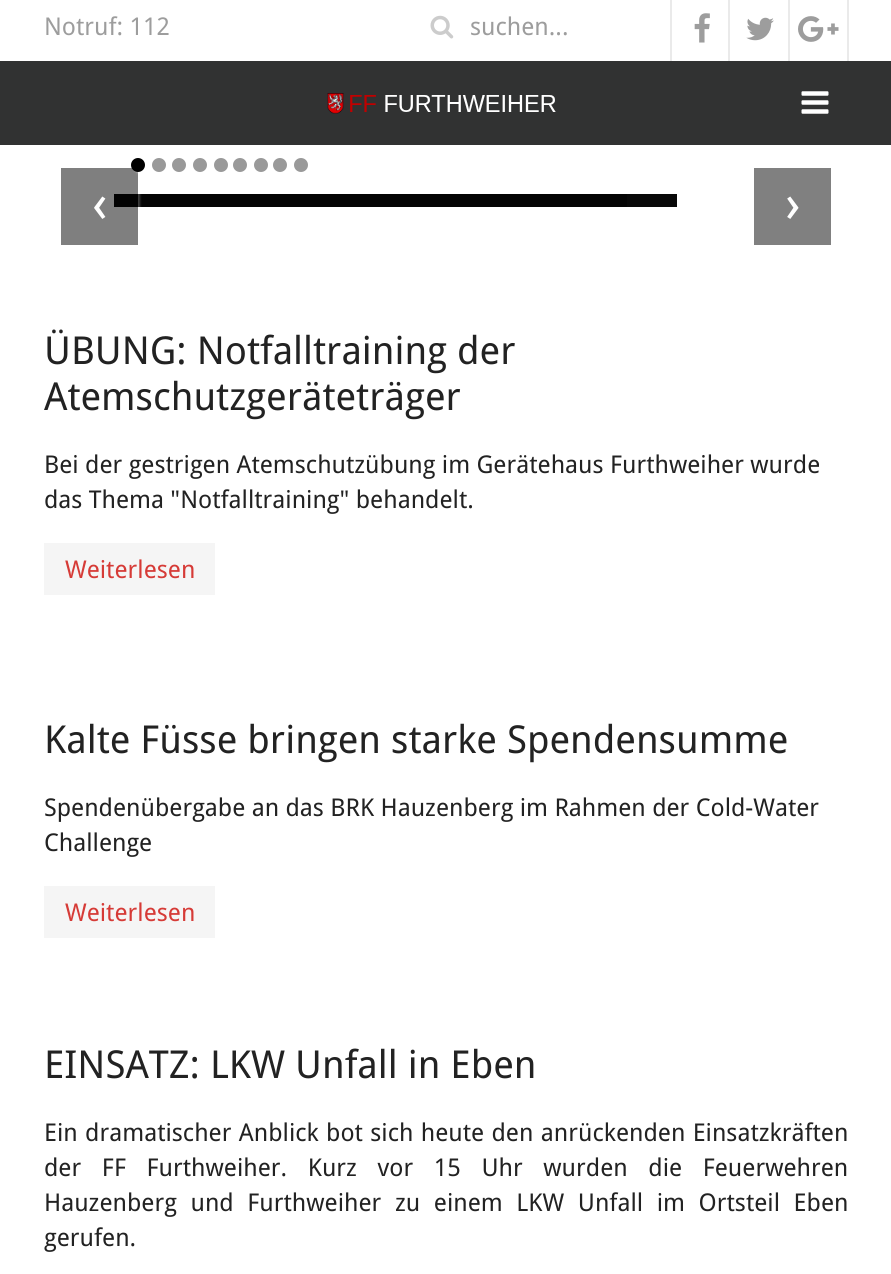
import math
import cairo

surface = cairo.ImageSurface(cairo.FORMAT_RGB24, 891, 1274)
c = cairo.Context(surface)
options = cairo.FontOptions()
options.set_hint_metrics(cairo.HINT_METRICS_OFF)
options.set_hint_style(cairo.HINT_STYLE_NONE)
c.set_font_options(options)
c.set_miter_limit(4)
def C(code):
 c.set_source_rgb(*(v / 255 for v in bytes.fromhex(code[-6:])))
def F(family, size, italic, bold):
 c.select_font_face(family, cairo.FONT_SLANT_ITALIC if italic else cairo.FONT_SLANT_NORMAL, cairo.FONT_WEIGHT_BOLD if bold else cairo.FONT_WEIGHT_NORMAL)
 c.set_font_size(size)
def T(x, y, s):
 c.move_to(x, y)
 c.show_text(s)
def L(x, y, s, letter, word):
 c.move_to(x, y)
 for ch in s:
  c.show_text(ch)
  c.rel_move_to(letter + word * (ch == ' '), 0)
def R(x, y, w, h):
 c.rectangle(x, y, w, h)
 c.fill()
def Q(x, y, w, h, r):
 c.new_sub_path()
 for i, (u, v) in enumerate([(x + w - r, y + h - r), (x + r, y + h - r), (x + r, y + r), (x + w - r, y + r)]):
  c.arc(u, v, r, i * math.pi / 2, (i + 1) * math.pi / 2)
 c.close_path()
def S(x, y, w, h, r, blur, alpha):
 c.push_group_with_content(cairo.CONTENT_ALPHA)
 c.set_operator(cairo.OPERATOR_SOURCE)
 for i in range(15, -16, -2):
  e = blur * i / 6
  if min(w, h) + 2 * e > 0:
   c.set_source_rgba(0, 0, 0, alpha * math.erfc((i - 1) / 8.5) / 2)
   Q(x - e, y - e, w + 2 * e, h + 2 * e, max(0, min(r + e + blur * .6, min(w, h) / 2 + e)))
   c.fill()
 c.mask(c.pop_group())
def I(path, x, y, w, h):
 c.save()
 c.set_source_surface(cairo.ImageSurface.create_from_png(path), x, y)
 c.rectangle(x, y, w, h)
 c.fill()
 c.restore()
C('313232')
c.paint()
C('ffffff')
R(0,0,891,61)
F('Droid Sans',24.5,0,0)
C('9d9d9d')
T(44,35,'Notruf: 112')
I('1.png',430,15,24,24)
T(470,35,'suchen...')
C('eaeaea')
R(670,0,2,61)
I('2.png',694,13,16,30)
R(728,0,2,61)
I('3.png',746,17,28,24)
R(847,0,2,61)
R(788,0,2,61)
I('4.png',798,16,41,26)
I('5.png',327,93,229,21)
I('6.png',801,91,28,23)
C('ffffff')
R(0,145,891,1129)
C('080808')
R(627,194,50,13)
C('040404')
R(114,194,513,13)
c.save()
c.set_fill_rule(cairo.FILL_RULE_EVEN_ODD)
c.new_path()
c.move_to(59,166)
c.line_to(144,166)
c.line_to(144,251)
c.line_to(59,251)
c.close_path()
c.move_to(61,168)
c.line_to(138,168)
c.line_to(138,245)
c.line_to(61,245)
c.close_path()
c.clip()
C('ffffff')
S(63,170,77,77,0,1,.25)
c.restore()
c.set_source_rgba(0,0,0,0.5)
R(61,168,77,77)
C('ffffff')
S(133,159,14,14,7,1,.5)
C('000000')
c.arc(138,165,7,0,2 * math.pi)
c.fill()
C('999999')
c.arc(159,165,7,0,2 * math.pi)
c.fill()
c.arc(179,165,7,0,2 * math.pi)
c.fill()
c.arc(200,165,7,0,2 * math.pi)
c.fill()
c.arc(221,165,7,0,2 * math.pi)
c.fill()
c.arc(240,165,7,0,2 * math.pi)
c.fill()
c.arc(261,165,7,0,2 * math.pi)
c.fill()
c.arc(280,165,7,0,2 * math.pi)
c.fill()
c.arc(301,165,7,0,2 * math.pi)
c.fill()
F('Droid Sans',54,0,0)
C('ffffff')
T(92,222,'‹')
C('808080')
R(754,168,77,77)
C('ffffff')
T(785,222,'›')
F('Droid Sans',38.5,0,0)
C('222222')
T(44,364,'ÜBUNG: Notfalltraining der')
T(44,410,'Atemschutzgeräteträger')
F('Droid Sans',24.5,0,0)
T(44,473,'Bei der gestrigen Atemschutzübung im Gerätehaus Furthweiher wurde')
T(44,508,'das Thema "Notfalltraining" behandelt.')
C('f5f5f5')
R(44,543,171,52)
C('d63b37')
T(65,578,'Weiterlesen')
F('Droid Sans',38.5,0,0)
C('222222')
T(44,753,'Kalte Füsse bringen starke Spendensumme')
F('Droid Sans',24.5,0,0)
T(44,816,'Spendenübergabe an das BRK Hauzenberg im Rahmen der Cold-Water')
T(44,851,'Challenge')
C('f5f5f5')
R(44,886,171,52)
C('d63b37')
T(65,921,'Weiterlesen')
F('Droid Sans',38.5,0,0)
C('222222')
T(44,1078,'EINSATZ: LKW Unfall in Eben')
F('Droid Sans',24.5,0,0)
L(44,1141,'Ein dramatischer Anblick bot sich heute den anrückenden Einsatzkräften',0,1)
L(44,1176,'der FF Furthweiher. Kurz vor 15 Uhr wurden die Feuerwehren',0,14.25)
L(44,1211,'Hauzenberg und Furthweiher zu einem LKW Unfall im Ortsteil Eben',0,7.25)
T(44,1246,'gerufen.')
surface.write_to_png('o.png')
